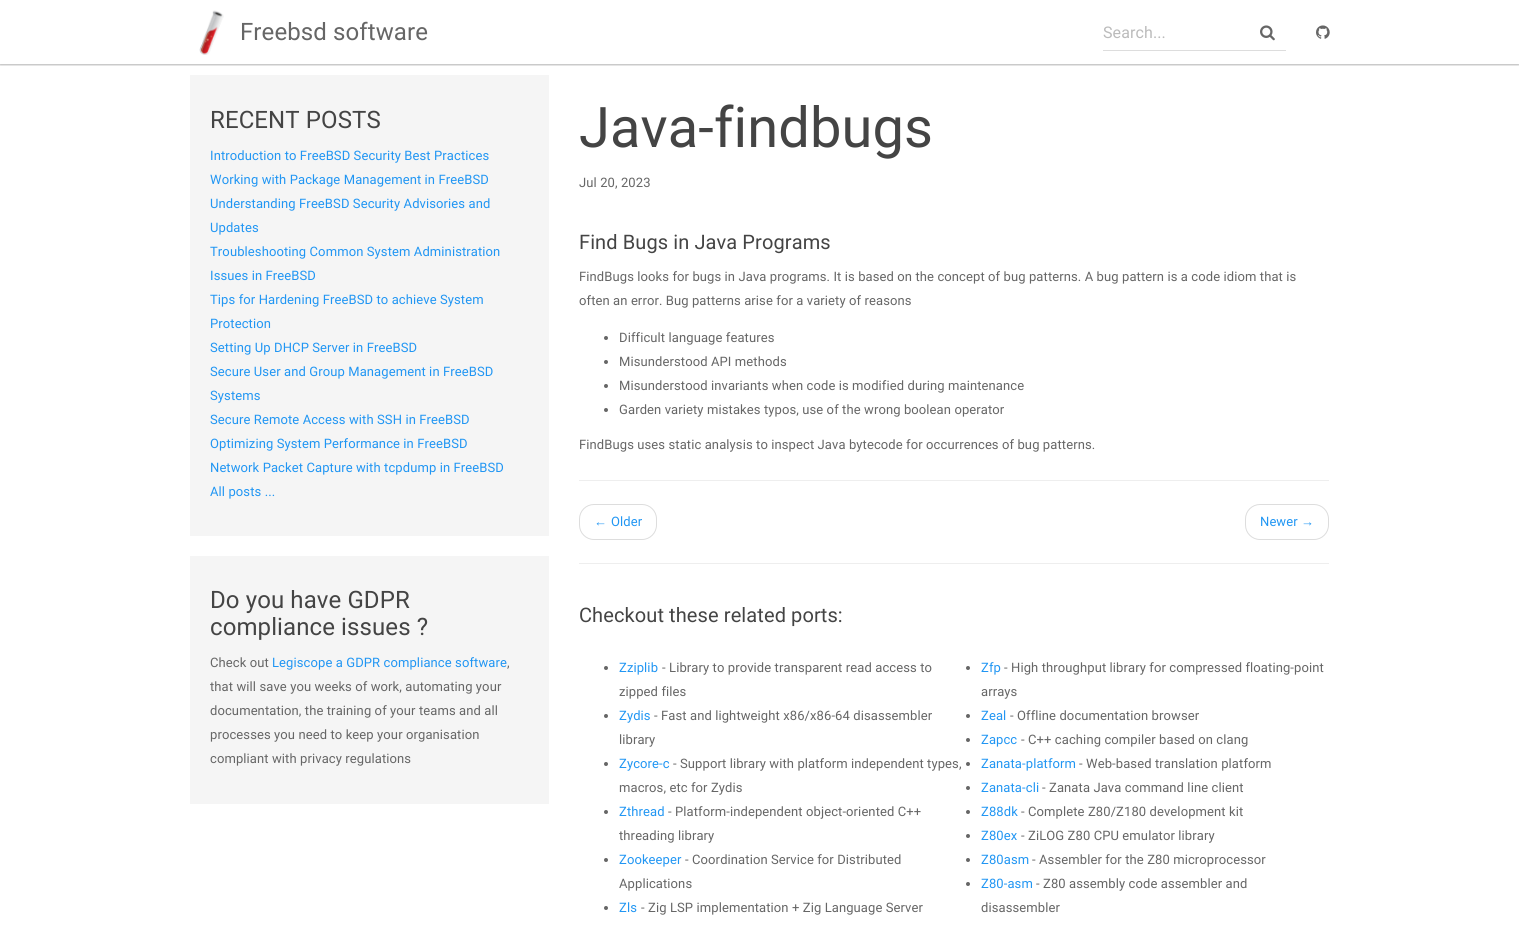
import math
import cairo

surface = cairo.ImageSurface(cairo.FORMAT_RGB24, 1519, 932)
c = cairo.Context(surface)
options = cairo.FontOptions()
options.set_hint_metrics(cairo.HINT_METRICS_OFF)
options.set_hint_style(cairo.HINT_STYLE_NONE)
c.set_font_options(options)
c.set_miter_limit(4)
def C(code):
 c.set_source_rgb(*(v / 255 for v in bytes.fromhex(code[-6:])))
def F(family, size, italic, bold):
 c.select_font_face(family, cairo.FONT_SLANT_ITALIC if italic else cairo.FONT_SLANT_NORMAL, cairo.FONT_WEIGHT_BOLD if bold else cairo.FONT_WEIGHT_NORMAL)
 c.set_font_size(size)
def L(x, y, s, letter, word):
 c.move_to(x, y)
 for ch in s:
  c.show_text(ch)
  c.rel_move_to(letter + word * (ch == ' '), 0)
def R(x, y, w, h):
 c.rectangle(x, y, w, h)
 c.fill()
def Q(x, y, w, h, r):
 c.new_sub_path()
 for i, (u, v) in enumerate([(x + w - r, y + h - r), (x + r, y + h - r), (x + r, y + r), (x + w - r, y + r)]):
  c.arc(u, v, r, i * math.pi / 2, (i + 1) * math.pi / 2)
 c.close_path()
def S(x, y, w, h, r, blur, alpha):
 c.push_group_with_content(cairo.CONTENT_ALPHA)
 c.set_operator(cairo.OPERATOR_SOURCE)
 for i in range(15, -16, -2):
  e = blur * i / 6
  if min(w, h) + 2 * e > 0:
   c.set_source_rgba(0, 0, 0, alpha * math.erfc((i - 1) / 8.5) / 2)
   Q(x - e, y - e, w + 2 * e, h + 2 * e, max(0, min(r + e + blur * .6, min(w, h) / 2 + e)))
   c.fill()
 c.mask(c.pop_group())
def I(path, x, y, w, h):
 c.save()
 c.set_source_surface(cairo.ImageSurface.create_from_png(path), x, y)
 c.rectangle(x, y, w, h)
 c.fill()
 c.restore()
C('ffffff')
c.paint()
c.save()
c.rectangle(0,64,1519,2)
c.clip()
C('000000')
S(0,1,1519,64,0,1,.3)
c.restore()
I('1.png',199,10,25,45)
F('Roboto',24,0,0)
C('666666')
L(240,40,'Freebsd software',.1,0)
C('dddddd')
R(1103,50,183,1)
F('Roboto',16,0,0)
C('bbbbbb')
L(1103,38,'Search...',.1,0)
I('2.png',1260,25,15,16)
I('3.png',1316,25,14,14)
C('f5f5f5')
R(190,75,359,461)
F('Roboto',24,0,0)
C('444444')
L(210,128,'RECENT POSTS',.1,0)
F('Roboto',13,0,0)
C('2196f3')
L(210,160,'Introduction to FreeBSD Security Best Practices',.1,0)
L(210,184,'Working with Package Management in FreeBSD',.1,0)
L(210,208,'Understanding FreeBSD Security Advisories and',.1,0)
L(210,232,'Updates',.1,0)
L(210,256,'Troubleshooting Common System Administration',.1,0)
L(210,280,'Issues in FreeBSD',.1,0)
L(210,304,'Tips for Hardening FreeBSD to achieve System',.1,0)
L(210,328,'Protection',.1,0)
L(210,352,'Setting Up DHCP Server in FreeBSD',.1,0)
L(210,376,'Secure User and Group Management in FreeBSD',.1,0)
L(210,400,'Systems',.1,0)
L(210,424,'Secure Remote Access with SSH in FreeBSD',.1,0)
L(210,448,'Optimizing System Performance in FreeBSD',.1,0)
L(210,472,'Network Packet Capture with tcpdump in FreeBSD',.1,0)
L(210,496,'All posts ...',.1,0)
C('f5f5f5')
R(190,556,359,248)
F('Roboto',24,0,0)
C('444444')
L(210,608,'Do you have GDPR',.1,0)
L(210,635,'compliance issues ?',.1,0)
F('Roboto',13,0,0)
C('666666')
L(210,667,'Check out',.1,0)
C('2196f3')
L(272,667,'Legiscope a GDPR compliance software',.1,0)
C('666666')
L(507,667,',',.1,0)
L(210,691,'that will save you weeks of work, automating your',.1,0)
L(210,715,'documentation, the training of your teams and all',.1,0)
L(210,739,'processes you need to keep your organisation',.1,0)
L(210,763,'compliant with privacy regulations',.1,0)
F('Roboto',56,0,0)
C('444444')
L(579,147,'Java-findbugs',.1,0)
F('Roboto',13,0,0)
C('666666')
L(579,187,'Jul 20, 2023',.1,0)
F('Roboto',20,0,0)
C('444444')
L(579,249,'Find Bugs in Java Programs',.1,0)
F('Roboto',13,0,0)
C('666666')
L(579,281,'FindBugs looks for bugs in Java programs. It is based on the concept of bug patterns. A bug pattern is a code idiom that is',.1,0)
L(579,305,'often an error. Bug patterns arise for a variety of reasons',.1,0)
c.new_path()
c.arc(606,338,2,0,2 * math.pi)
c.fill()
L(619,342,'Difficult language features',.1,0)
c.new_path()
c.arc(606,362,2,0,2 * math.pi)
c.fill()
L(619,366,'Misunderstood API methods',.1,0)
c.new_path()
c.arc(606,386,2,0,2 * math.pi)
c.fill()
L(619,390,'Misunderstood invariants when code is modified during maintenance',.1,0)
c.new_path()
c.arc(606,410,2,0,2 * math.pi)
c.fill()
L(619,414,'Garden variety mistakes typos, use of the wrong boolean operator',.1,0)
L(579,449,'FindBugs uses static analysis to inspect Java bytecode for occurrences of bug patterns.',.1,0)
C('eeeeee')
R(579,480,750,1)
Q(579.5,504.5,77,35,14.5)
C('dddddd')
c.set_line_width(1)
c.stroke()
F('Liberation Sans',13,0,0)
C('2196f3')
L(594,526,'←',.1,0)
F('Roboto',13,0,0)
L(611,526,'Older',.1,0)
Q(1245.5,504.5,83,35,14.5)
C('dddddd')
c.stroke()
C('2196f3')
L(1260,526,'Newer',.1,0)
F('Liberation Sans',13,0,0)
L(1301,526,'→',.1,0)
C('eeeeee')
R(579,563,750,1)
F('Roboto',20,0,0)
C('444444')
L(579,622,'Checkout these related ports:',.1,0)
C('666666')
c.new_path()
c.arc(606,668,2,0,2 * math.pi)
c.fill()
F('Roboto',13,0,0)
C('2196f3')
L(619,672,'Zziplib',.1,0)
C('666666')
L(662,672,'- Library to provide transparent read access to',.1,0)
L(619,696,'zipped files',.1,0)
c.new_path()
c.arc(968,668,2,0,2 * math.pi)
c.fill()
C('2196f3')
L(981,672,'Zfp',.1,0)
C('666666')
L(1004,672,'- High throughput library for compressed floating-point',.1,0)
L(981,696,'arrays',.1,0)
c.new_path()
c.arc(606,716,2,0,2 * math.pi)
c.fill()
C('2196f3')
L(619,720,'Zydis',.1,0)
C('666666')
L(654,720,'- Fast and lightweight x86/x86-64 disassembler',.1,0)
L(619,744,'library',.1,0)
c.new_path()
c.arc(968,716,2,0,2 * math.pi)
c.fill()
C('2196f3')
L(981,720,'Zeal',.1,0)
C('666666')
L(1010,720,'- Offline documentation browser',.1,0)
c.new_path()
c.arc(968,740,2,0,2 * math.pi)
c.fill()
C('2196f3')
L(981,744,'Zapcc',.1,0)
C('666666')
L(1021,744,'- C++ caching compiler based on clang',.1,0)
c.new_path()
c.arc(606,764,2,0,2 * math.pi)
c.fill()
C('2196f3')
L(619,768,'Zycore-c',.1,0)
C('666666')
L(673,768,'- Support library with platform independent types,',.1,0)
L(619,792,'macros, etc for Zydis',.1,0)
c.new_path()
c.arc(968,764,2,0,2 * math.pi)
c.fill()
C('2196f3')
L(981,768,'Zanata-platform',.1,0)
C('666666')
L(1079,768,'- Web-based translation platform',.1,0)
c.new_path()
c.arc(968,788,2,0,2 * math.pi)
c.fill()
C('2196f3')
L(981,792,'Zanata-cli',.1,0)
C('666666')
L(1042,792,'- Zanata Java command line client',.1,0)
c.new_path()
c.arc(606,812,2,0,2 * math.pi)
c.fill()
C('2196f3')
L(619,816,'Zthread',.1,0)
C('666666')
L(668,816,'- Platform-independent object-oriented C++',.1,0)
L(619,840,'threading library',.1,0)
c.new_path()
c.arc(968,812,2,0,2 * math.pi)
c.fill()
C('2196f3')
L(981,816,'Z88dk',.1,0)
C('666666')
L(1021,816,'- Complete Z80/Z180 development kit',.1,0)
c.new_path()
c.arc(968,836,2,0,2 * math.pi)
c.fill()
C('2196f3')
L(981,840,'Z80ex',.1,0)
C('666666')
L(1021,840,'- ZiLOG Z80 CPU emulator library',.1,0)
c.new_path()
c.arc(606,860,2,0,2 * math.pi)
c.fill()
C('2196f3')
L(619,864,'Zookeeper',.1,0)
C('666666')
L(685,864,'- Coordination Service for Distributed',.1,0)
L(619,888,'Applications',.1,0)
c.new_path()
c.arc(968,860,2,0,2 * math.pi)
c.fill()
C('2196f3')
L(981,864,'Z80asm',.1,0)
C('666666')
L(1032,864,'- Assembler for the Z80 microprocessor',.1,0)
c.new_path()
c.arc(606,908,2,0,2 * math.pi)
c.fill()
C('2196f3')
L(619,912,'Zls',.1,0)
C('666666')
L(641,912,'- Zig LSP implementation + Zig Language Server',.1,0)
c.new_path()
c.arc(968,884,2,0,2 * math.pi)
c.fill()
C('2196f3')
L(981,888,'Z80-asm',.1,0)
C('666666')
L(1036,888,'- Z80 assembly code assembler and',.1,0)
L(981,912,'disassembler',.1,0)
surface.write_to_png('o.png')
